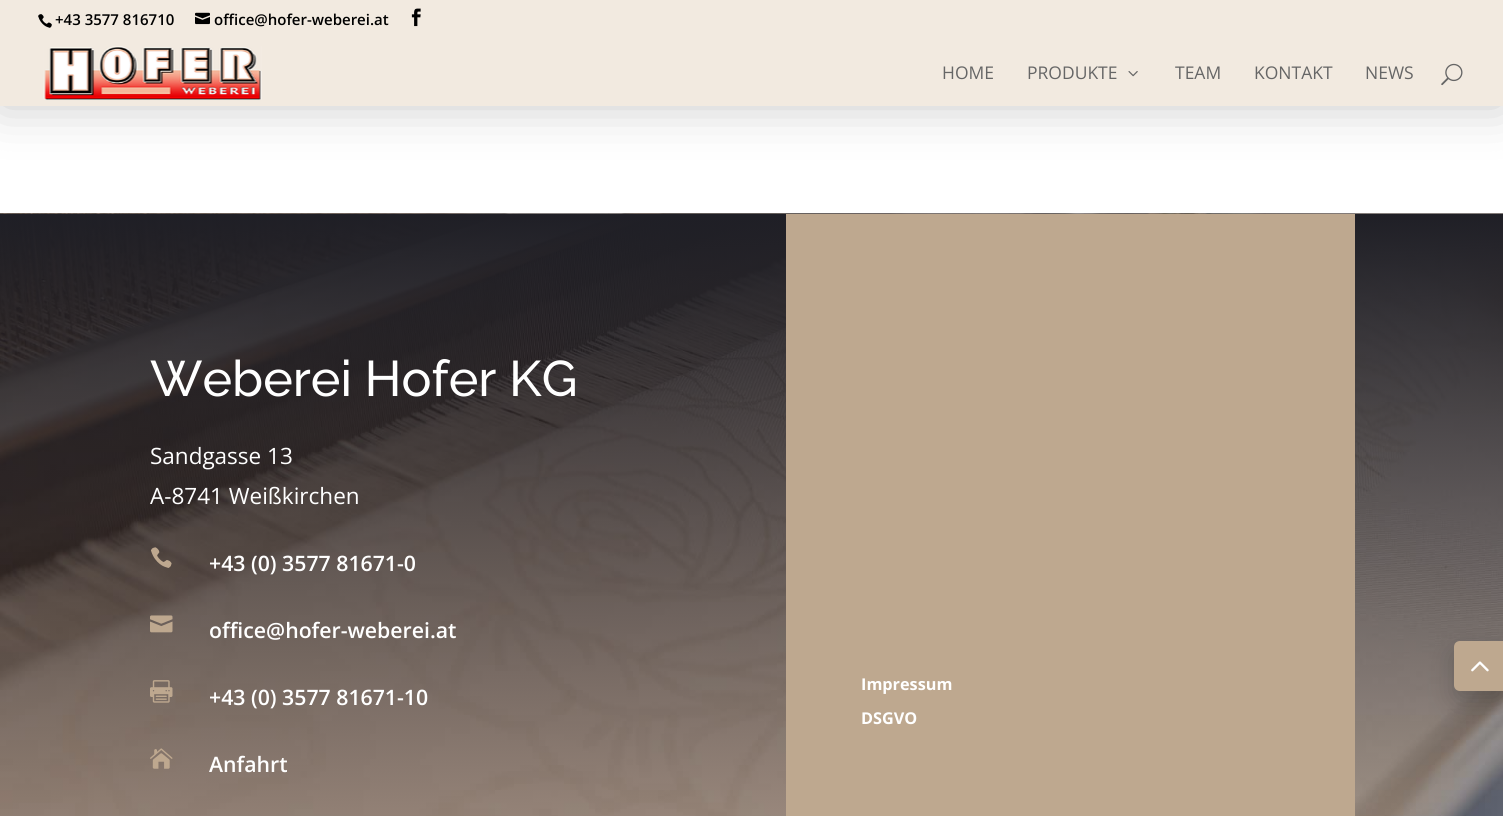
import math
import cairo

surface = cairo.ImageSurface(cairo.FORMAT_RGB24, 1503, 816)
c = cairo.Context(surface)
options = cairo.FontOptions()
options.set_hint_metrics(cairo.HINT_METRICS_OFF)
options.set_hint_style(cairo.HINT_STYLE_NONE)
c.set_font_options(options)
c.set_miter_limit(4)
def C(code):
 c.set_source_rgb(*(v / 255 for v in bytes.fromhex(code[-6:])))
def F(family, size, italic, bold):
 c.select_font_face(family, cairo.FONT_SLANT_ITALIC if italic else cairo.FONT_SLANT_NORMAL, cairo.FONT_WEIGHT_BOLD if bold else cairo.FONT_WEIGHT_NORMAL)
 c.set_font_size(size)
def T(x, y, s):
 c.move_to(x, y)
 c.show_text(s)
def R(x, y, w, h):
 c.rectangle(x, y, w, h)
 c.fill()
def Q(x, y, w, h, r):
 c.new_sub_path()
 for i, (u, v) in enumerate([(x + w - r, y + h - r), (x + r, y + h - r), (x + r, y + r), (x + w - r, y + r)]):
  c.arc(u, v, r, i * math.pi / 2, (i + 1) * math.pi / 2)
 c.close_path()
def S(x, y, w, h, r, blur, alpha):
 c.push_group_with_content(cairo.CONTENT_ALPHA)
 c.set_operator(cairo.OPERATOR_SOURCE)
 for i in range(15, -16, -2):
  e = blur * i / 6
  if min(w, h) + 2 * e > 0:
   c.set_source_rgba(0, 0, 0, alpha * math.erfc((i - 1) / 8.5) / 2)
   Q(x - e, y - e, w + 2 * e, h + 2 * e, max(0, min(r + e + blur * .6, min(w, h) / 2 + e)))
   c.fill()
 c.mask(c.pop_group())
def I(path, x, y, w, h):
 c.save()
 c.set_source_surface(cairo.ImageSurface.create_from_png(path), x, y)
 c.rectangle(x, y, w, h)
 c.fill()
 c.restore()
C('ffffff')
c.paint()
C('000000')
S(0,39,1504,67,0,25,.22)
C('f2eae0')
R(0,0,1503,106)
I('1.png',38,14,14,14)
F('Open Sans SemiBold',15,0,0)
C('000000')
T(55,25,'+43 3577 816710')
I('2.png',195,12,15,13)
T(214,25,'office@hofer-weberei.at')
I('3.png',411,8,10,19)
I('4.png',43,46,219,54)
F('Open Sans',17.5,0,0)
C('666666')
T(942,79,'HOME')
T(1027,79,'PRODUKTE')
I('5.png',1128,71,10,6)
T(1175,79,'TEAM')
T(1254,79,'KONTAKT')
T(1365,79,'NEWS')
I('6.png',1441,63,22,23)
I('7.png',0,213,1503,603)
F('Raleway Medium',50,0,0)
C('ffffff')
T(150,396,'Weberei Hofer KG')
F('Open Sans',22.5,0,0)
T(150,464,'Sandgasse 13')
T(150,504,'A-8741 Weißkirchen')
I('8.png',151,547,21,21)
F('Open Sans SemiBold',21.25,0,0)
T(209,571,'+43 (0) 3577 81671-0')
I('9.png',150,615,23,18)
T(209,638,'office@hofer-weberei.at')
I('10.png',150,680,23,23)
T(209,705,'+43 (0) 3577 81671-10')
I('11.png',150,748,23,21)
T(209,772,'Anfahrt')
C('bea88f')
R(786,214,569,602)
F('Open Sans',16.25,0,1)
C('ffffff')
T(861,690,'Impressum')
T(861,724,'DSGVO')
C('000000')
S(1454,651,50,50,6,12.5,.2)
C('bea88f')
c.new_path()
c.move_to(1460,641)
c.line_to(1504,641)
c.line_to(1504,691)
c.line_to(1460,691)
c.curve_to(1456.5,691,1454,688.5,1454,685)
c.line_to(1454,647)
c.curve_to(1454,643.5,1456.5,641,1460,641)
c.close_path()
c.fill()
I('12.png',1471,661,18,11)
surface.write_to_png('o.png')
